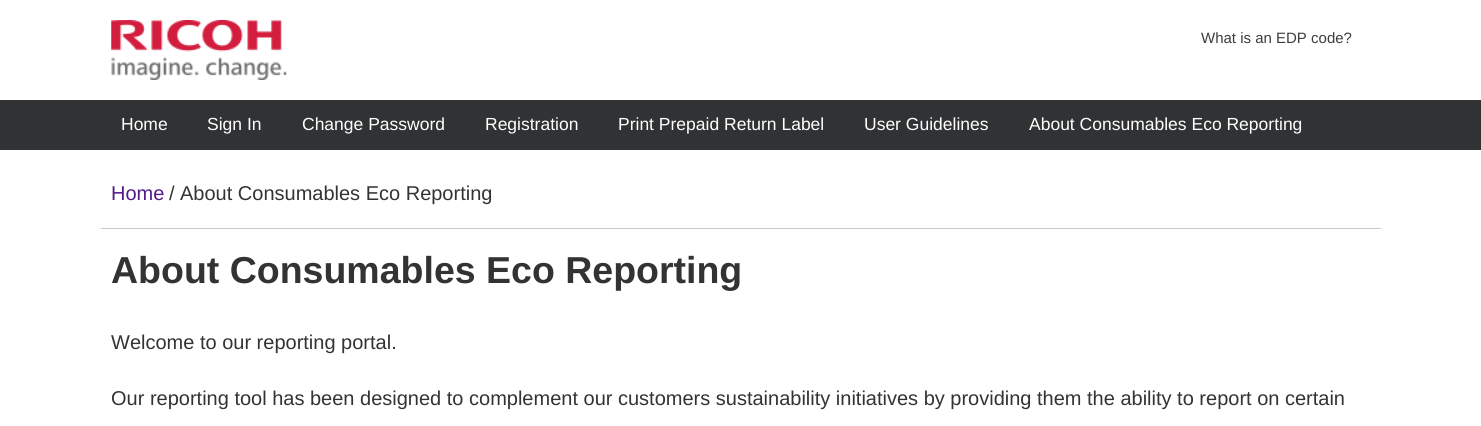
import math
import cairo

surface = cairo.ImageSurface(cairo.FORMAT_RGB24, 1481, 426)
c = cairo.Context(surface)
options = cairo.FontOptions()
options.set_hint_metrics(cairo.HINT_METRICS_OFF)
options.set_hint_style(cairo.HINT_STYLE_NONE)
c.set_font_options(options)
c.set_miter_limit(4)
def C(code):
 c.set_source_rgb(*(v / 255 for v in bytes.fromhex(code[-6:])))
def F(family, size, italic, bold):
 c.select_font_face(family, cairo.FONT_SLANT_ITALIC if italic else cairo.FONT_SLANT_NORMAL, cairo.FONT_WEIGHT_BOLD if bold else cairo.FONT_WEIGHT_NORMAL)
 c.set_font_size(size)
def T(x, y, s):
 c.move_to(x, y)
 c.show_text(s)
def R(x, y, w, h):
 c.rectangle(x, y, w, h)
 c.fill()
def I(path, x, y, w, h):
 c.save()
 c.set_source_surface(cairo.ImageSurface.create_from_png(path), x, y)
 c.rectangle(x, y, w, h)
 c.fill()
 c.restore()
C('ffffff')
c.paint()
I('1.png',111,20,176,60)
F('Liberation Sans',15,0,0)
C('3d3c41')
T(1201,43,'What is an EDP code?')
C('303233')
R(0,100,1481,50)
F('Liberation Sans',17.5,0,0)
C('ffffff')
T(121,130,'Home')
T(207,130,'Sign In')
T(302,130,'Change Password')
T(485,130,'Registration')
T(618,130,'Print Prepaid Return Label')
T(864,130,'User Guidelines')
T(1029,130,'About Consumables Eco Reporting')
C('c9c9c9')
R(101,228,1280,1)
F('Liberation Sans',20,0,0)
C('551a8b')
T(111,200,'Home')
C('333333')
T(169,200,'/')
T(180,200,'About Consumables Eco Reporting')
F('Liberation Sans',37.5,0,1)
T(111,283,'About Consumables Eco Reporting')
F('Liberation Sans',20,0,0)
T(111,349,'Welcome to our reporting portal.')
T(111,405,'Our reporting tool has been designed to complement our customers sustainability initiatives by providing them the ability to report on certain')
surface.write_to_png('o.png')
